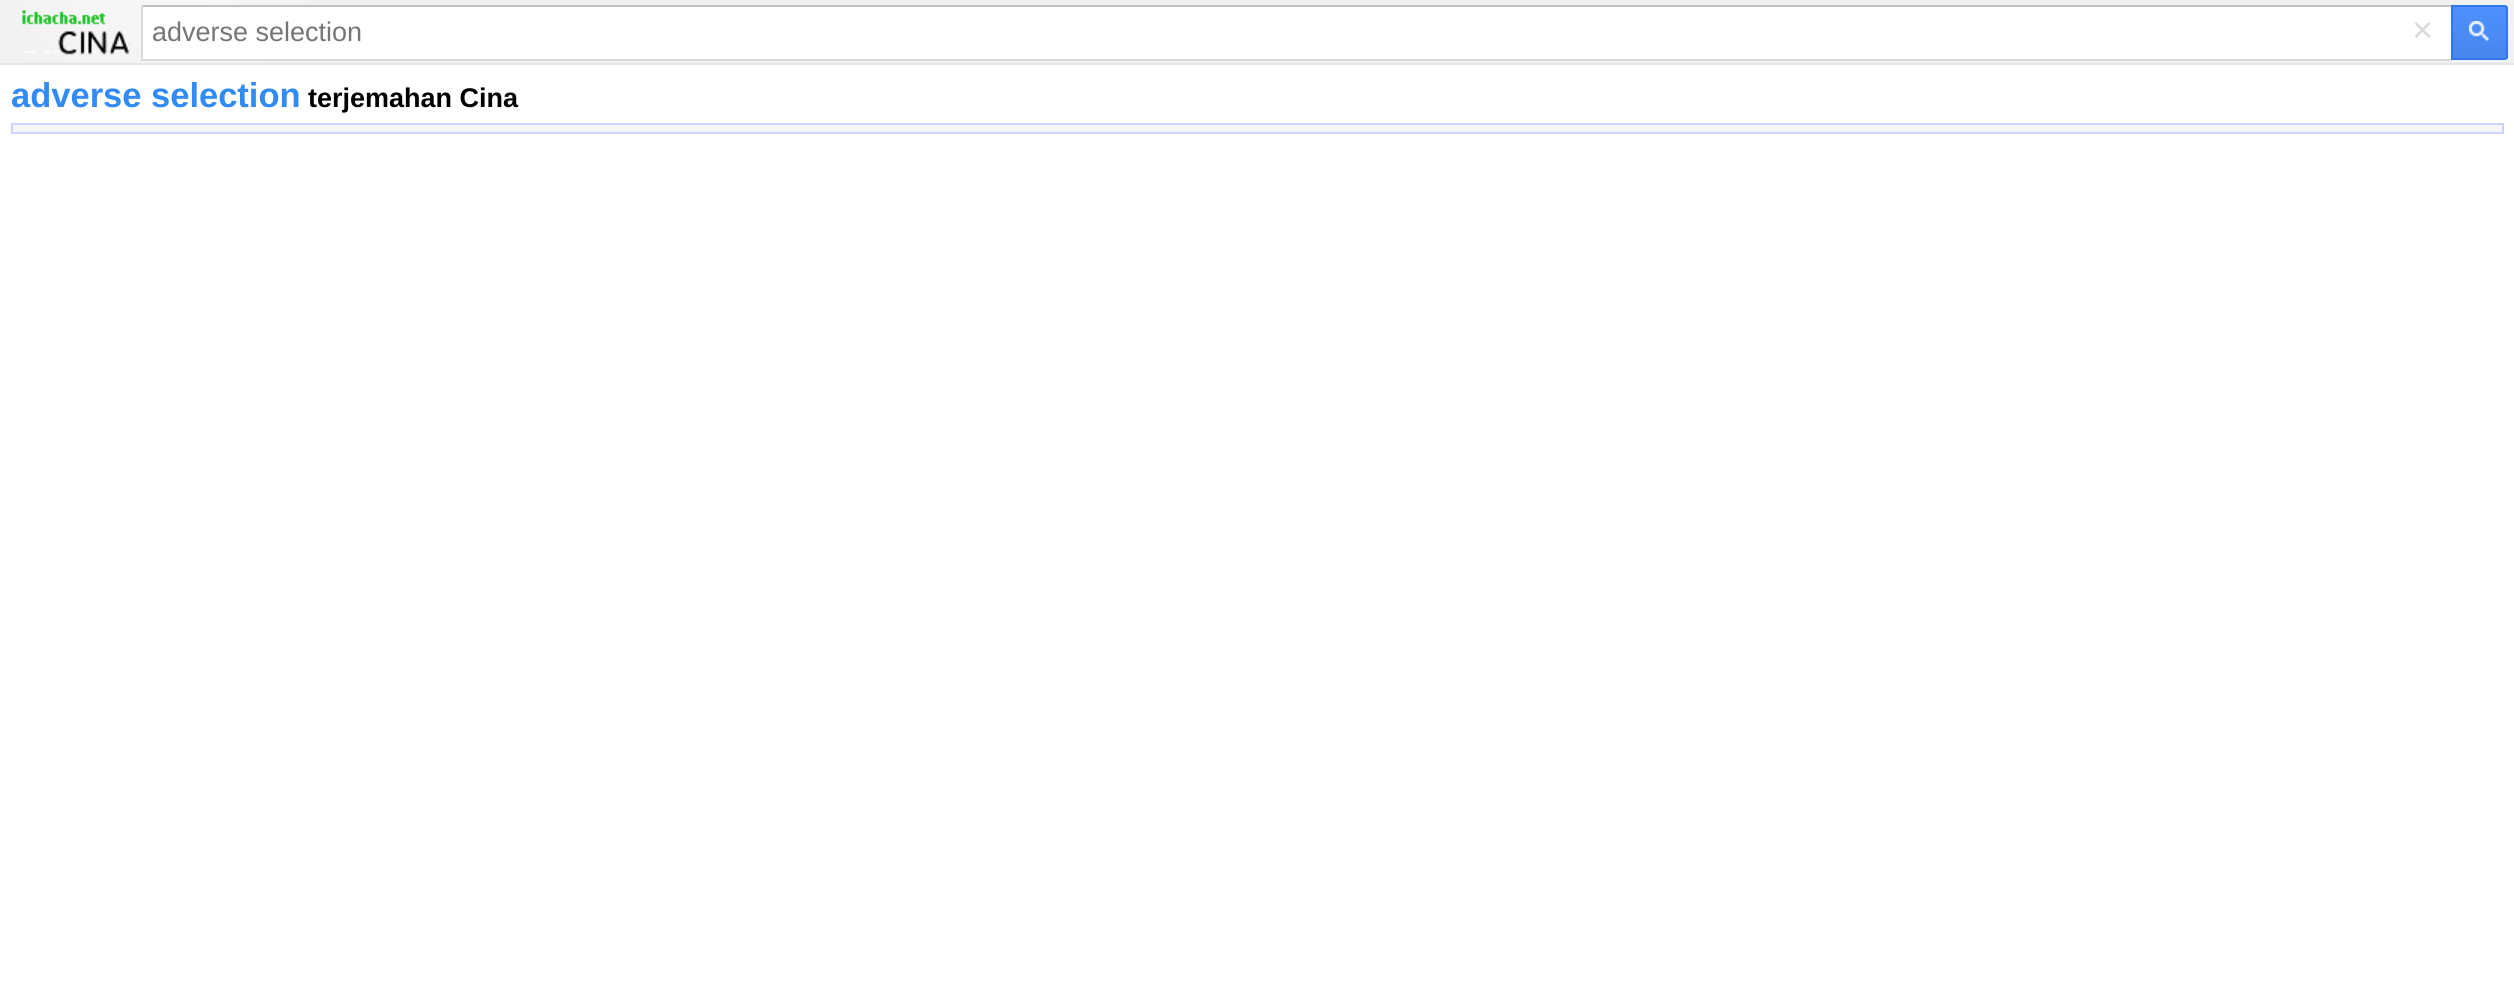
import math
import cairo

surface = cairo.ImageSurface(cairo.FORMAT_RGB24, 2514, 990)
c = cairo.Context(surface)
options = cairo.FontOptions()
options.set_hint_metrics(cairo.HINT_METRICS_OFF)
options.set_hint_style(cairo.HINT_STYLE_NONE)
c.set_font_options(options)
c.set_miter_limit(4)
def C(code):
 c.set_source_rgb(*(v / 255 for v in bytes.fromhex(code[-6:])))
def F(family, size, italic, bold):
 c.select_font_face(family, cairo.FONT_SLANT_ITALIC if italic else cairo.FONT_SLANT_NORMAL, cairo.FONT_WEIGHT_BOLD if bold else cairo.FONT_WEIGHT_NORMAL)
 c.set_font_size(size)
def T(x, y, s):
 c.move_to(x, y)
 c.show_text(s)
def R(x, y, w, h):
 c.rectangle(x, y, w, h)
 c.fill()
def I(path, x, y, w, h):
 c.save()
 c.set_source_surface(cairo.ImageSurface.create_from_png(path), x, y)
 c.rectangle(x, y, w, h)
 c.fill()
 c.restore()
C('ffffff')
c.paint()
gradient = cairo.RadialGradient(150,-60,0,150,-60,180)
gradient.add_color_stop_rgba(0,0.98,0.98,0.98,1)
gradient.add_color_stop_rgba(1,0.945,0.945,0.945,1)
c.set_source(gradient)
R(0,0,2514,63)
C('e5e5e5')
R(0,63,2514,2)
I('1.png',22,10,109,45)
C('ffffff')
R(143,7,2308,52)
C('c0c0c0')
R(141,5,2310,2)
C('d9d9d9')
R(141,59,2310,2)
R(141,5,2,55)
F('Liberation Sans',27,0,0)
C('757575')
T(152,41,'adverse selection')
F('Liberation Sans',36,0,0)
C('d9d9d9')
T(2412,42,'×')
c.save()
c.new_path()
c.move_to(2451,5)
c.line_to(2505,5)
c.curve_to(2506.5,5,2508,6.5,2508,8)
c.line_to(2508,57)
c.curve_to(2508,58.5,2506.5,60,2505,60)
c.line_to(2451,60)
c.close_path()
c.clip()
gradient = cairo.LinearGradient(2453,6,2453,59)
gradient.add_color_stop_rgba(0,0.302,0.565,0.996,1)
gradient.add_color_stop_rgba(1,0.278,0.529,0.929,1)
c.set_source(gradient)
R(2453,6,55,53)
c.restore()
c.new_path()
c.move_to(2452,6)
c.line_to(2505,6)
c.curve_to(2506,6,2507,7,2507,8)
c.line_to(2507,57)
c.curve_to(2507,58,2506,59,2505,59)
c.line_to(2452,59)
c.close_path()
C('3079ed')
c.stroke()
I('2.png',2469,21,20,20)
F('Liberation Sans',34.5,0,1)
C('328af4')
T(11,107,'adverse selection')
F('Liberation Sans',27,0,1)
C('000000')
T(308,107,'terjemahan Cina')
C('f6f6f6')
c.rectangle(12,124,2491,9)
c.fill_preserve()
C('ccd5ff')
c.stroke()
surface.write_to_png('o.png')
